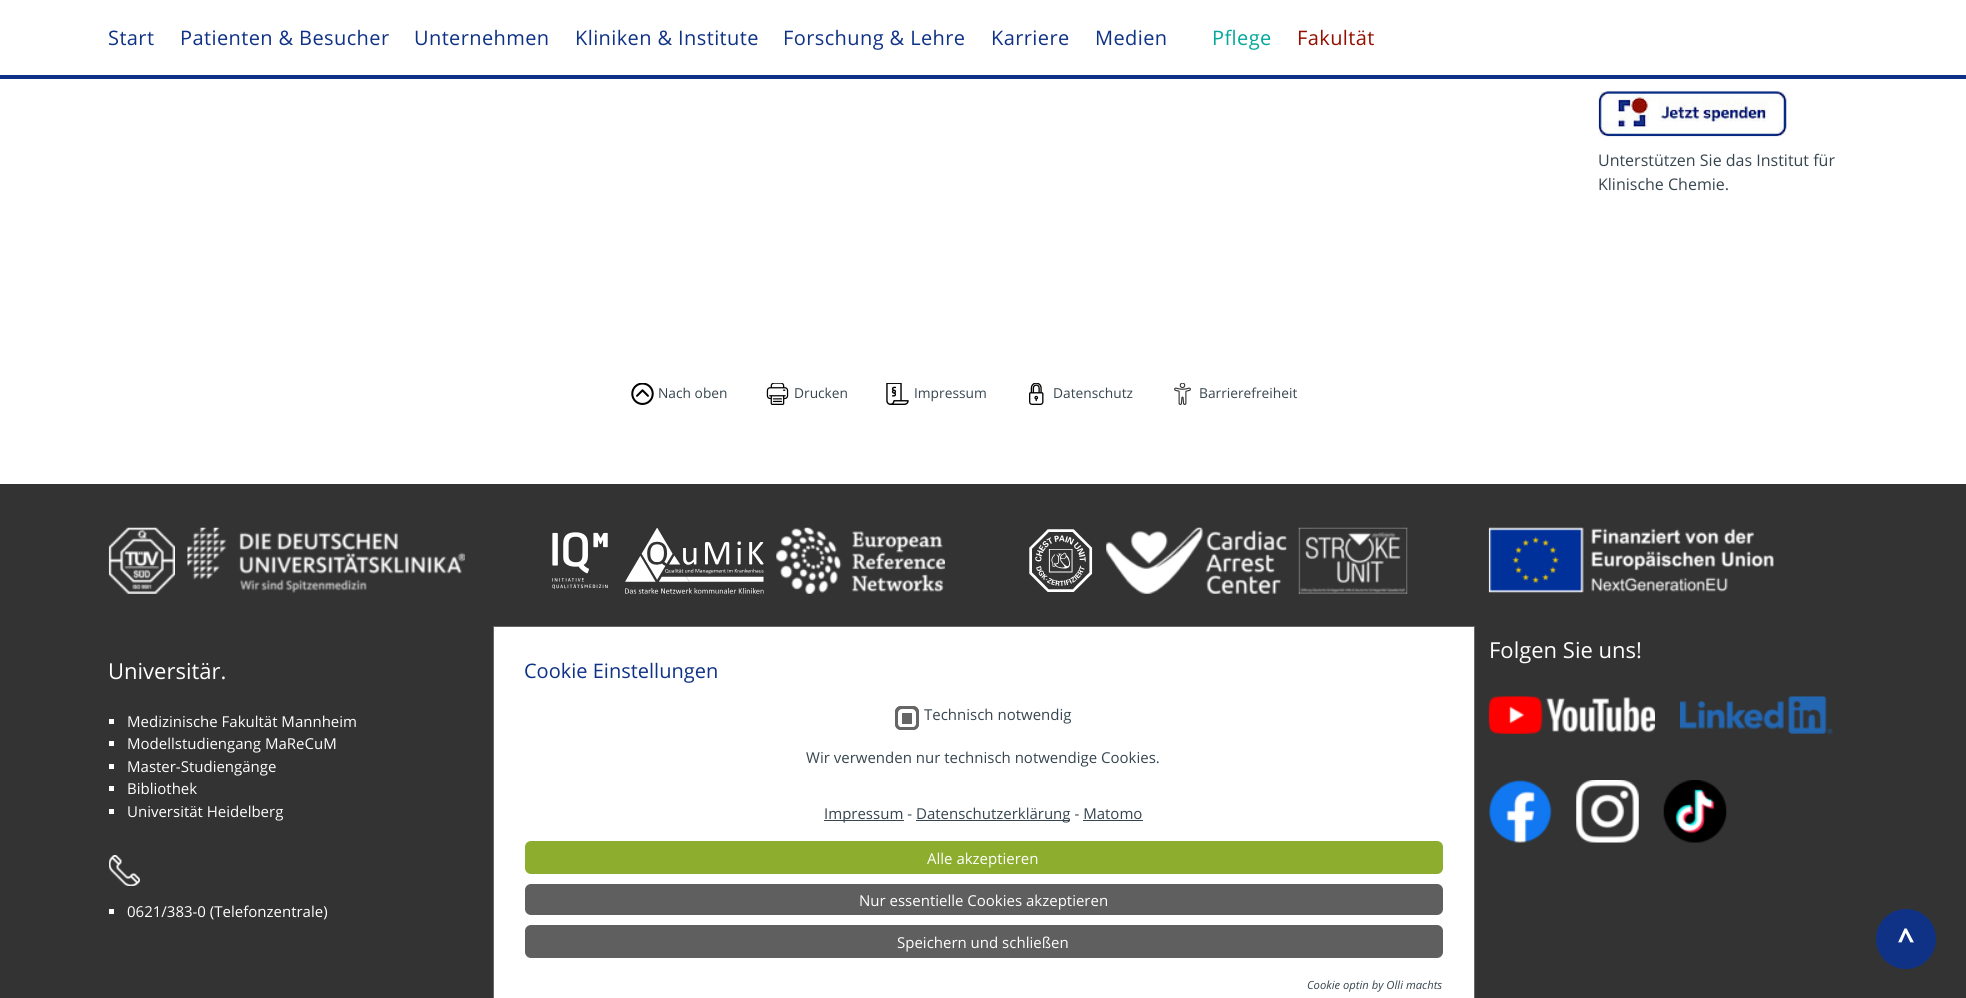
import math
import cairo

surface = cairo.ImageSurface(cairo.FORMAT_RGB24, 1966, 998)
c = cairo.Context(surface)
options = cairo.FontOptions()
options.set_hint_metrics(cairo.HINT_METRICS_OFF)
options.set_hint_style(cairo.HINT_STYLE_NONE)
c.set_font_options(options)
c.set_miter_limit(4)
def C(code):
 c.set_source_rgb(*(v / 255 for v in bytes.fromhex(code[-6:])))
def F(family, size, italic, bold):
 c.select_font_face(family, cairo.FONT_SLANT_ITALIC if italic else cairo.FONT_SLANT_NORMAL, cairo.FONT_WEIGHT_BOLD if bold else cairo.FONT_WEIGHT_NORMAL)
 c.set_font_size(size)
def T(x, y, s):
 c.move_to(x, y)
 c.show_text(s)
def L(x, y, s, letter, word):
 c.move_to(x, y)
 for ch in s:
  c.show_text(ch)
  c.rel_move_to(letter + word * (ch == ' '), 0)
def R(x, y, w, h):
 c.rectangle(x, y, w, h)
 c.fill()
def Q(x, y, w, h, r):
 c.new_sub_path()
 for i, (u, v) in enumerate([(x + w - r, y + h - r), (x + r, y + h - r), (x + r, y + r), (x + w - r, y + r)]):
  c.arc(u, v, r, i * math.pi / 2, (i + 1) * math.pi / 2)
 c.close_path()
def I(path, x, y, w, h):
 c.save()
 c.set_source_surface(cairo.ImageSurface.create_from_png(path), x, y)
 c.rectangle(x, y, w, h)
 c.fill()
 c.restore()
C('ffffff')
c.paint()
C('0f3286')
R(0,75,1966,4)
F('Open Sans',20,0,0)
L(108,45,'Start',.4,0)
L(180,45,'Patienten & Besucher',.4,0)
L(414,45,'Unternehmen',.4,0)
L(575,45,'Kliniken & Institute',.4,0)
L(783,45,'Forschung & Lehre',.4,0)
L(991,45,'Karriere',.4,0)
L(1095,45,'Medien',.4,0)
C('04a89b')
L(1212,45,'Pflege',.4,0)
C('930f00')
L(1297,45,'Fakultät',.4,0)
C('333333')
R(0,484,1966,514)
C('0f3286')
c.new_path()
c.arc(1906,939,30,0,2 * math.pi)
c.fill()
F('Open Sans',30,0,1)
C('ffffff')
T(1898,950,'^')
I('1.png',1598,91,189,46)
F('Open Sans',16,0,0)
C('36454f')
T(1598,166,'Unterstützen Sie das Institut für')
T(1598,190,'Klinische Chemie.')
I('2.png',631,383,23,22)
F('Open Sans',13.75,0,0)
T(658,398,'Nach oben')
I('3.png',766,383,23,22)
T(794,398,'Drucken')
I('4.png',886,383,23,22)
T(914,398,'Impressum')
I('5.png',1029,383,15,22)
T(1053,398,'Datenschutz')
I('6.png',1174,383,17,22)
T(1199,398,'Barrierefreiheit')
I('7.png',552,532,56,57)
I('8.png',625,528,139,66)
I('9.png',776,527,169,67)
I('10.png',1029,529,64,63)
I('11.png',1106,527,181,67)
I('12.png',1298,527,110,67)
I('13.png',1488,527,286,66)
F('Open Sans',22,0,0)
C('ffffff')
T(1489,658,'Folgen Sie uns!')
I('14.png',1488,696,167,38)
I('15.png',1680,696,153,38)
I('16.png',1489,780,63,63)
I('17.png',1576,780,63,63)
I('18.png',1663,780,64,63)
I('19.png',108,527,67,67)
I('20.png',187,527,278,66)
T(108,679,'Universitär.')
R(109,719,5,5)
F('Open Sans',15,0,0)
T(127,727,'Medizinische Fakultät Mannheim')
R(109,741,5,5)
T(127,749,'Modellstudiengang MaReCuM')
R(109,764,5,5)
T(127,772,'Master-Studiengänge')
R(109,786,5,5)
T(127,794,'Bibliothek')
R(109,809,5,5)
T(127,817,'Universität Heidelberg')
I('21.png',109,855,31,31)
R(109,909,5,5)
T(127,917,'0621/383-0 (Telefonzentrale)')
R(494,627,980,371)
C('666666')
R(493,626,982,1)
R(1474,626,1,372)
R(493,626,1,372)
F('Open Sans',20,0,0)
C('0f3286')
T(524,678,'Cookie Einstellungen')
C('666666')
Q(895,706,24,24,6)
c.fill()
Q(900,711,14,15,2)
C('ffffff')
c.set_line_width(4)
c.stroke()
Q(896.5,707.5,21,21,4.5)
C('666666')
c.set_line_width(3)
c.stroke()
F('Open Sans',15,0,0)
C('36454f')
T(924,720,'Technisch notwendig')
T(806,763,'Wir verwenden nur technisch notwendige Cookies.')
R(824,820,80,1)
T(824,819,'Impressum -')
R(916,820,154,1)
T(916,819,'Datenschutzerklärung - Matomo')
R(1083,820,60,1)
C('8cad2d')
Q(525,841,918,33,6)
c.fill()
C('ffffff')
T(927,864,'Alle akzeptieren')
C('5f5f5f')
Q(525,884,918,31,6)
c.fill()
C('ffffff')
T(859,906,'Nur essentielle Cookies akzeptieren')
C('5f5f5f')
Q(525,925,918,33,6)
c.fill()
C('ffffff')
T(897,948,'Speichern und schließen')
F('Open Sans',11.25,1,0)
C('36454f')
T(1307,989,'Cookie optin by Olli machts')
surface.write_to_png('o.png')
